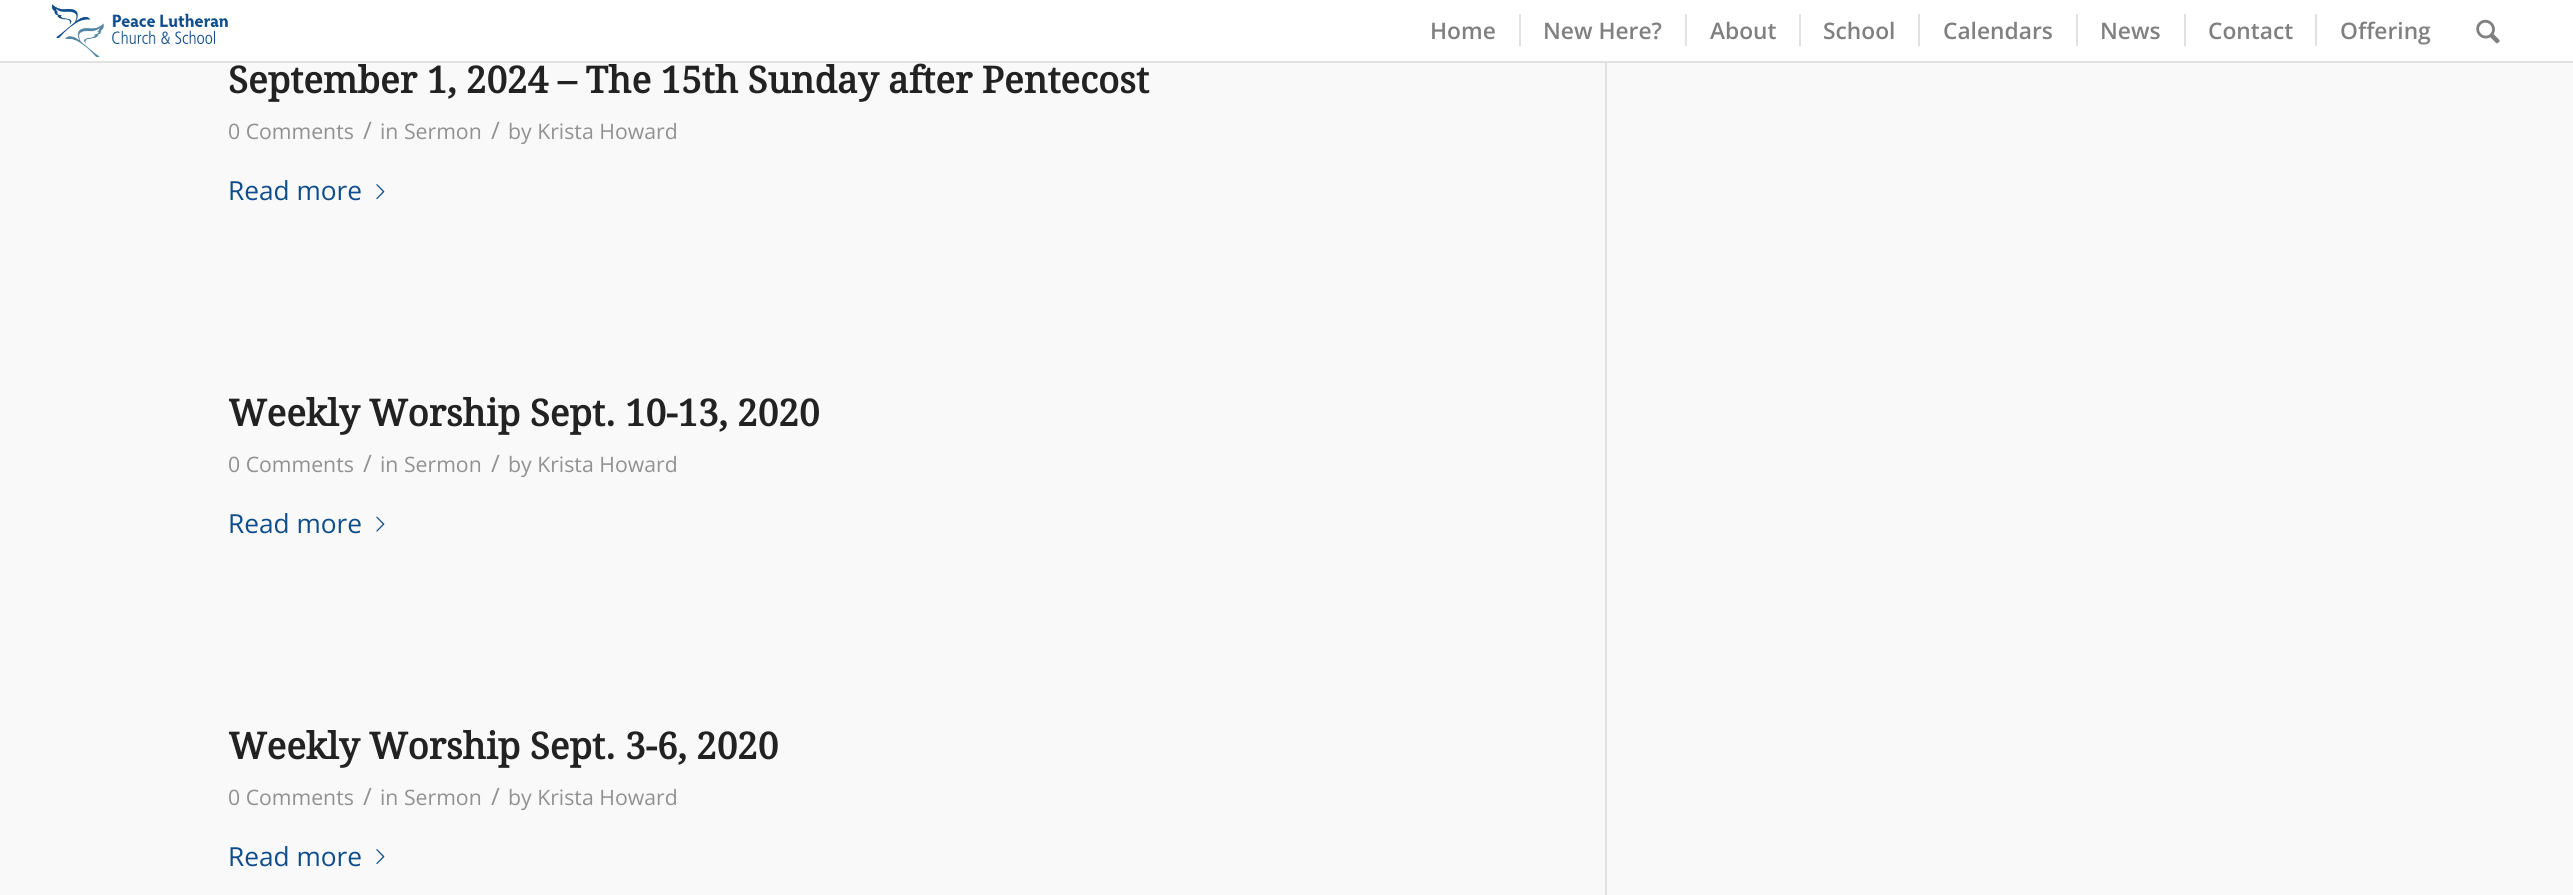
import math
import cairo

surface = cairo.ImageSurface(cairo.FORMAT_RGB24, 2573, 895)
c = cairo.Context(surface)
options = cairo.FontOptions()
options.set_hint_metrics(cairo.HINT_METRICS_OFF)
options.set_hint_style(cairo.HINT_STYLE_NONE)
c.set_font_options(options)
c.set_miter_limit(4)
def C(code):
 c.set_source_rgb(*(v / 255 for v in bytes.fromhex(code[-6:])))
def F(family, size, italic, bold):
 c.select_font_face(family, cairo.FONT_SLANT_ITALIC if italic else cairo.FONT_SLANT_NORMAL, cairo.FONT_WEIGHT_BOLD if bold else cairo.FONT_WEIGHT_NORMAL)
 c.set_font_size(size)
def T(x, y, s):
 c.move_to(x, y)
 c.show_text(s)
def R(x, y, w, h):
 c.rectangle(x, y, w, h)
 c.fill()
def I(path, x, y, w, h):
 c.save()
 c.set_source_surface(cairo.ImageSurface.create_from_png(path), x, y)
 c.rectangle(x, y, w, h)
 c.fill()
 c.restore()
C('f9f9f9')
c.paint()
C('fefefe')
R(1605,61,2,2)
C('e1e1e1')
R(0,61,2573,2)
C('ffffff')
R(0,0,2573,61)
I('1.png',52,4,176,53)
F('Open Sans SemiBold',22.75,0,0)
C('808080')
T(1430,39,'Home')
T(1543,39,'New Here?')
C('e1e1e1')
R(1519,14,2,32)
C('808080')
T(1710,39,'About')
C('e1e1e1')
R(1685,14,2,32)
C('808080')
T(1823,39,'School')
C('e1e1e1')
R(1799,14,2,32)
C('808080')
T(1943,39,'Calendars')
C('e1e1e1')
R(1918,14,2,32)
C('808080')
T(2100,39,'News')
C('e1e1e1')
R(2076,14,2,32)
C('808080')
T(2208,39,'Contact')
C('e1e1e1')
R(2184,14,2,32)
C('808080')
T(2340,39,'Offering')
C('e1e1e1')
R(2315,14,2,32)
I('2.png',2476,19,24,25)
R(1605,63,2,832)
F('Droid Serif',36.75,0,1)
C('222222')
T(228,93,'September 1, 2024 – The 15th Sunday after Pentecost')
F('Open Sans',21.25,0,0)
C('919191')
T(228,139,'0 Comments')
F('Open Sans',24,0,0)
T(363,139,'/')
F('Open Sans',21.25,0,0)
T(380,139,'in Sermon')
F('Open Sans',24,0,0)
T(491,139,'/')
F('Open Sans',21.25,0,0)
T(508,139,'by Krista Howard')
F('Open Sans',26.25,0,0)
C('0e4d8c')
T(228,200,'Read more')
I('3.png',376,184,9,16)
c.save()
c.rectangle(229,389,1376,334)
c.clip()
F('Droid Serif',36.75,0,1)
C('222222')
T(228,426,'Weekly Worship Sept. 10-13, 2020')
c.restore()
F('Open Sans',21.25,0,0)
C('919191')
T(228,472,'0 Comments')
F('Open Sans',24,0,0)
T(363,472,'/')
F('Open Sans',21.25,0,0)
T(380,472,'in Sermon')
F('Open Sans',24,0,0)
T(491,472,'/')
F('Open Sans',21.25,0,0)
T(508,472,'by Krista Howard')
F('Open Sans',26.25,0,0)
C('0e4d8c')
T(228,533,'Read more')
I('4.png',376,516,9,16)
c.save()
c.rectangle(229,723,1376,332)
c.clip()
F('Droid Serif',36.75,0,1)
C('222222')
T(228,759,'Weekly Worship Sept. 3-6, 2020')
c.restore()
F('Open Sans',21.25,0,0)
C('919191')
T(228,805,'0 Comments')
F('Open Sans',24,0,0)
T(363,805,'/')
F('Open Sans',21.25,0,0)
T(380,805,'in Sermon')
F('Open Sans',24,0,0)
T(491,805,'/')
F('Open Sans',21.25,0,0)
T(508,805,'by Krista Howard')
F('Open Sans',26.25,0,0)
C('0e4d8c')
T(228,866,'Read more')
I('3.png',376,849,9,16)
surface.write_to_png('o.png')
